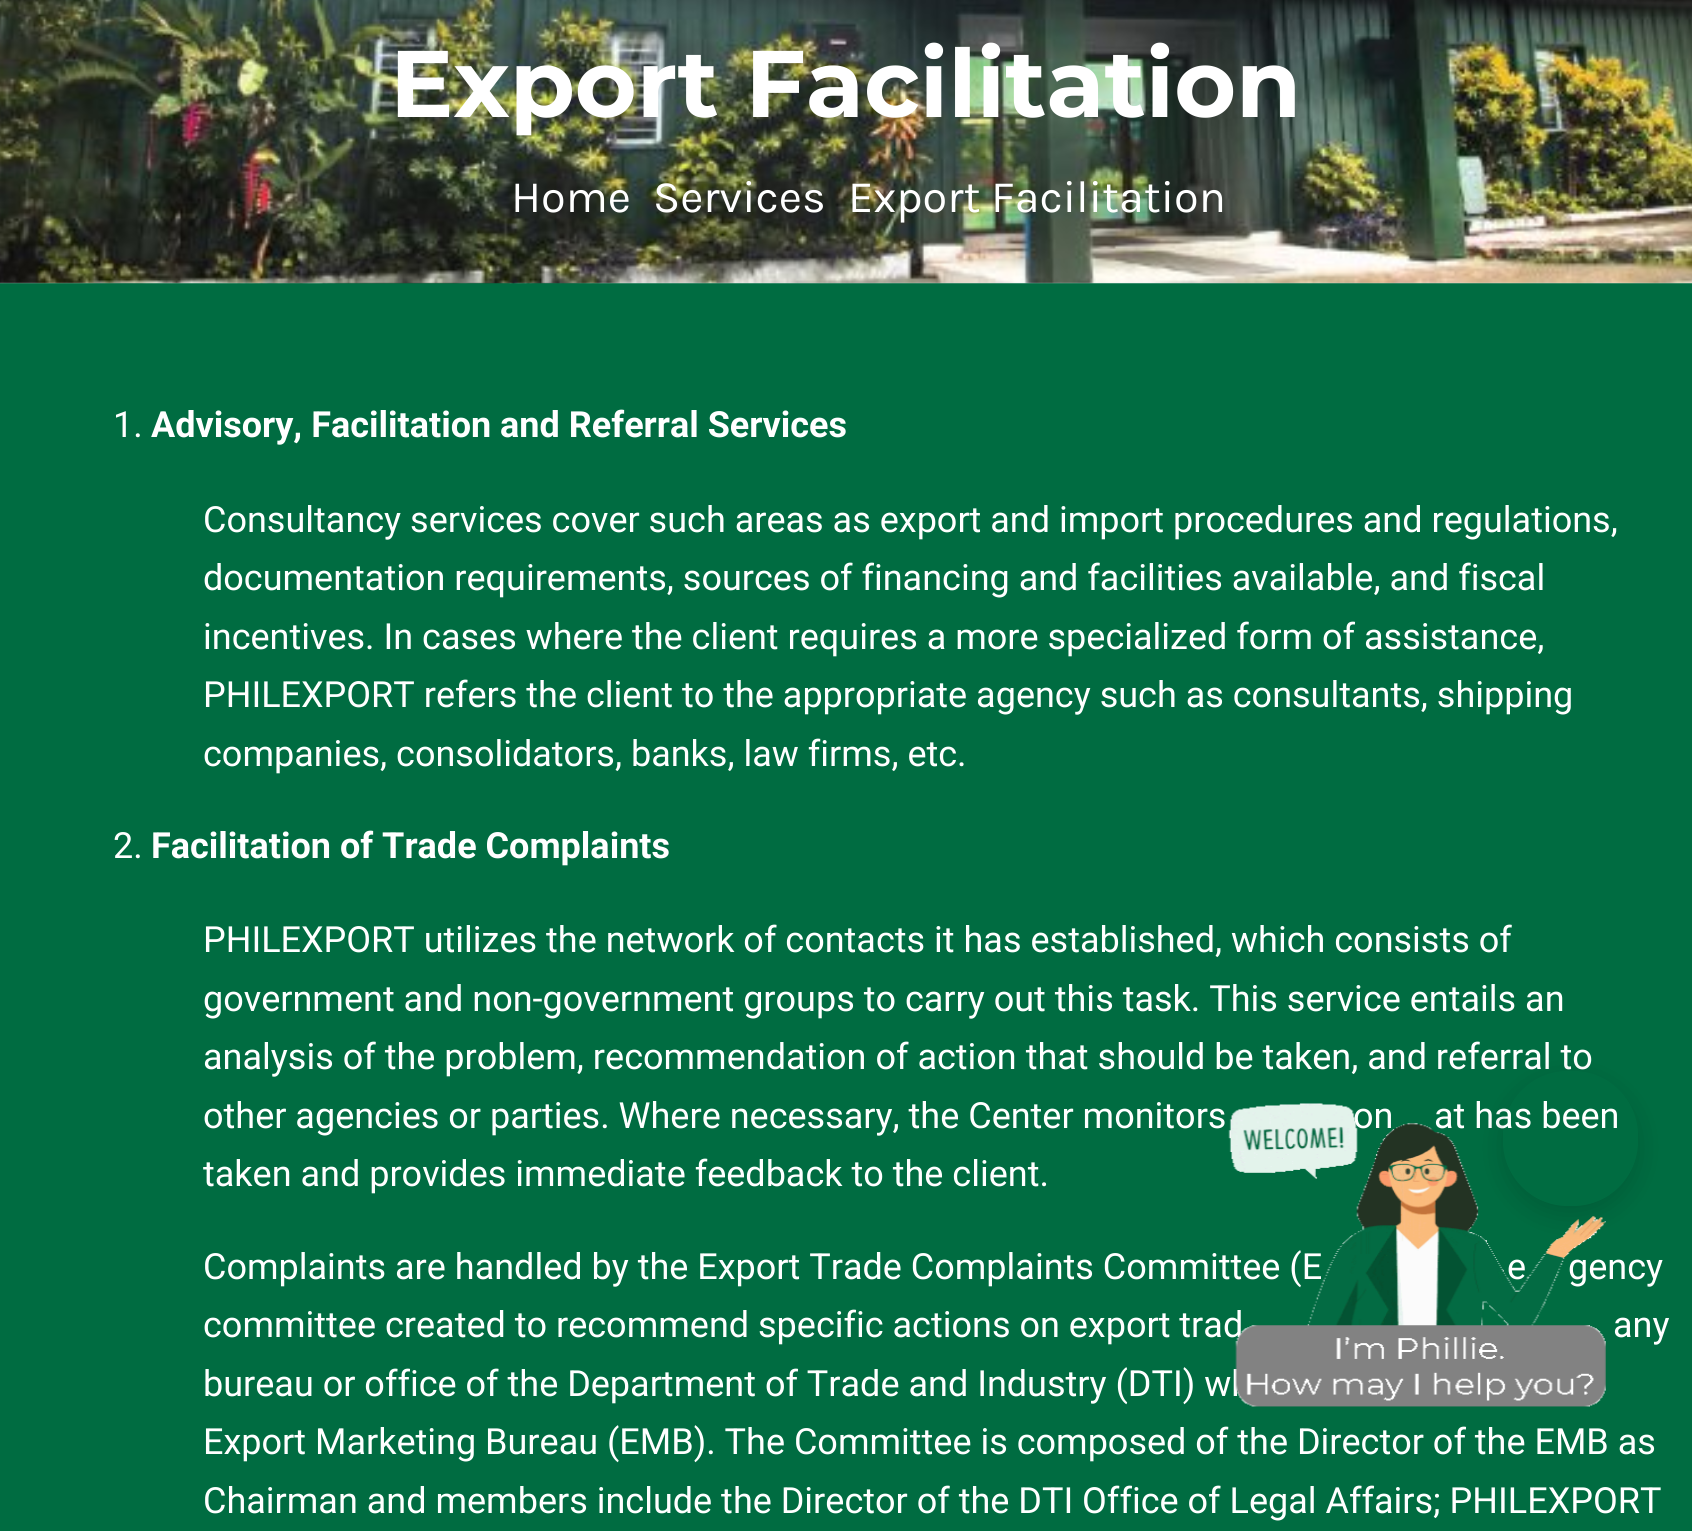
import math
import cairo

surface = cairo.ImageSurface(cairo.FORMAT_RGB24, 1692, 1531)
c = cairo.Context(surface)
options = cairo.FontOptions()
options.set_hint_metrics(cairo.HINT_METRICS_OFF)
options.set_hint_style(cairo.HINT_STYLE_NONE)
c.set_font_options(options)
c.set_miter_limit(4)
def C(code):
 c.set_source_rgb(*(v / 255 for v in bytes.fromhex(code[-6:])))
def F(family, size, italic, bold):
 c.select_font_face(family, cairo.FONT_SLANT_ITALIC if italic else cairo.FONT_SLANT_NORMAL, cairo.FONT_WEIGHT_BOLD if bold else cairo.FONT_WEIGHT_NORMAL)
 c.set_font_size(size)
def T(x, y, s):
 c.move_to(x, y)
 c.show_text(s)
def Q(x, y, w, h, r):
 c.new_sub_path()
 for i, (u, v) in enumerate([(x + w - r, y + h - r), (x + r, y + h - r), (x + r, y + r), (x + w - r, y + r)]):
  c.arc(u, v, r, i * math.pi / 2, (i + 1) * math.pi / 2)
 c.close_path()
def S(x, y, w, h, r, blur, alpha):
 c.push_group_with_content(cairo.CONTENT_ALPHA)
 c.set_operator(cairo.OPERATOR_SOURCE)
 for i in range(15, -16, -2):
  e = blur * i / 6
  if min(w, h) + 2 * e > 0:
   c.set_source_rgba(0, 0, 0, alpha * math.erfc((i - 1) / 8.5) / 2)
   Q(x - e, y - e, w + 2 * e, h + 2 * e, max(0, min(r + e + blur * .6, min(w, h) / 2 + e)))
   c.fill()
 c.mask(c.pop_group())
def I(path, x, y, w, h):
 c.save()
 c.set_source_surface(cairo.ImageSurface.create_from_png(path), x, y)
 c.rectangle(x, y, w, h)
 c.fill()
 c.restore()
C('006c41')
c.paint()
I('1.png',0,0,1692,284)
F('Montserrat',94.5,0,1)
C('ffffff')
T(390,117,'Export Facilitation')
F('Karla',45,0,0)
T(511,212,'Home')
T(653,212,'Services')
T(848,212,'Export Facilitation')
F('Roboto',36,0,0)
T(113,437,'1.')
F('Roboto',36,0,1)
T(151,437,'Advisory, Facilitation and Referral Services')
F('Roboto',36,0,0)
T(203,532,'Consultancy services cover such areas as export and import procedures and regulations,')
T(203,590,'documentation requirements, sources of financing and facilities available, and fiscal')
T(203,649,'incentives. In cases where the client requires a more specialized form of assistance,')
T(203,707,'PHILEXPORT refers the client to the appropriate agency such as consultants, shipping')
T(203,766,'companies, consolidators, banks, law firms, etc.')
T(113,858,'2.')
F('Roboto',36,0,1)
T(151,858,'Facilitation of Trade Complaints')
F('Roboto',36,0,0)
T(203,952,'PHILEXPORT utilizes the network of contacts it has established, which consists of')
T(203,1011,'government and non-government groups to carry out this task. This service entails an')
T(203,1069,'analysis of the problem, recommendation of action that should be taken, and referral to')
T(203,1128,'other agencies or parties. Where necessary, the Center monitors')
T(1353,1128,'on')
T(1434,1128,'at has been')
T(203,1186,'taken and provides immediate feedback to the client.')
T(203,1279,'Complaints are handled by the Export Trade Complaints Committee (E')
T(1507,1279,'e')
T(1568,1279,'gency')
T(203,1337,'committee created to recommend specific actions on export trad')
T(1613,1337,'any')
T(203,1396,'bureau or office of the Department of Trade and Industry (DTI) wh')
T(203,1454,'Export Marketing Bureau (EMB). The Committee is composed of the Director of the EMB as')
T(203,1513,'Chairman and members include the Director of the DTI Office of Legal Affairs; PHILEXPORT')
I('2.png',1228,1103,378,304)
c.save()
c.set_fill_rule(cairo.FILL_RULE_EVEN_ODD)
c.new_path()
c.move_to(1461,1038)
c.line_to(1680,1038)
c.line_to(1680,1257)
c.line_to(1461,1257)
c.close_path()
c.move_to(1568,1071)
c.line_to(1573,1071)
c.curve_to(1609,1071,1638,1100,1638,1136)
c.line_to(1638,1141)
c.curve_to(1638,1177,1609,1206,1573,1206)
c.line_to(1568,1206)
c.curve_to(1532,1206,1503,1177,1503,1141)
c.line_to(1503,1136)
c.curve_to(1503,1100,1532,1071,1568,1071)
c.close_path()
c.clip()
C('000000')
S(1503,1080,135,135,65,13.5,.15)
c.restore()
surface.write_to_png('o.png')
